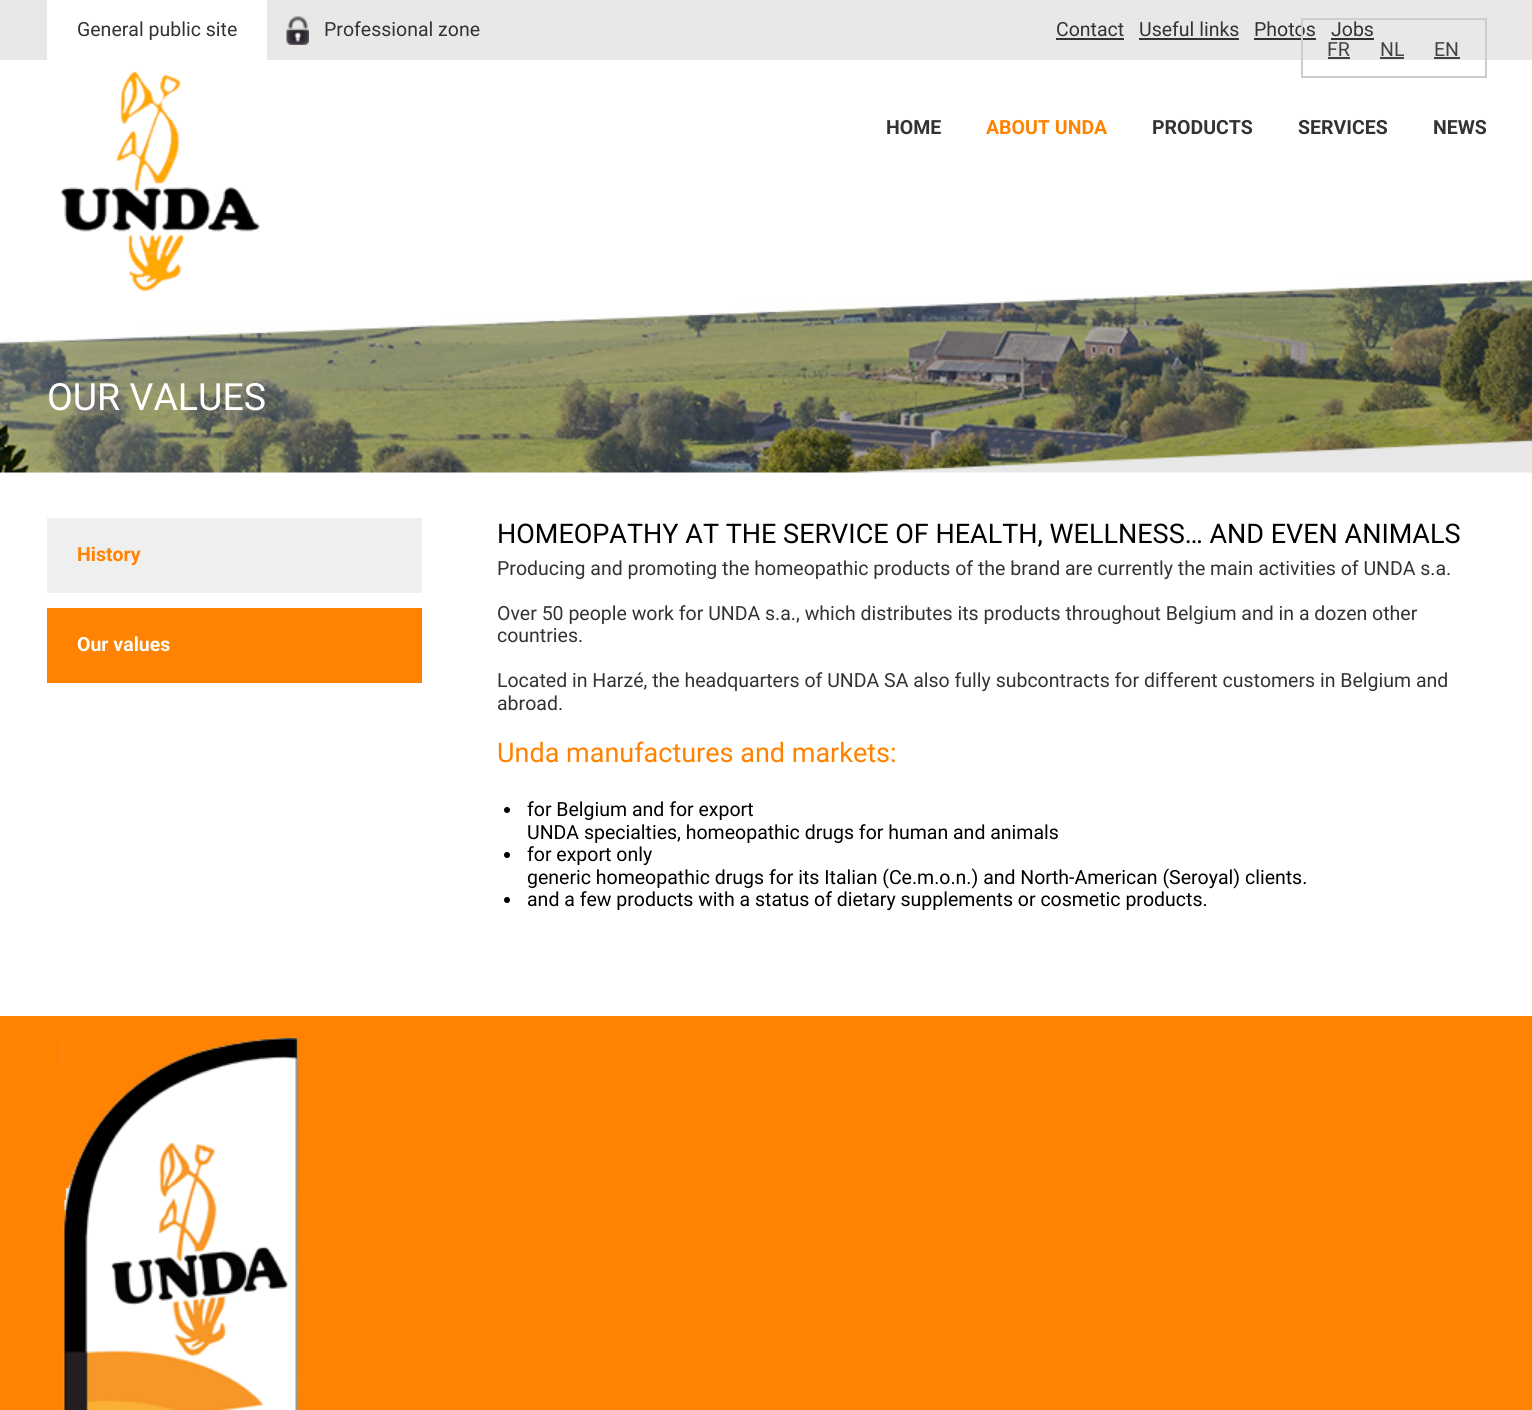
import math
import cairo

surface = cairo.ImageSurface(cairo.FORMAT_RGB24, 1532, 1410)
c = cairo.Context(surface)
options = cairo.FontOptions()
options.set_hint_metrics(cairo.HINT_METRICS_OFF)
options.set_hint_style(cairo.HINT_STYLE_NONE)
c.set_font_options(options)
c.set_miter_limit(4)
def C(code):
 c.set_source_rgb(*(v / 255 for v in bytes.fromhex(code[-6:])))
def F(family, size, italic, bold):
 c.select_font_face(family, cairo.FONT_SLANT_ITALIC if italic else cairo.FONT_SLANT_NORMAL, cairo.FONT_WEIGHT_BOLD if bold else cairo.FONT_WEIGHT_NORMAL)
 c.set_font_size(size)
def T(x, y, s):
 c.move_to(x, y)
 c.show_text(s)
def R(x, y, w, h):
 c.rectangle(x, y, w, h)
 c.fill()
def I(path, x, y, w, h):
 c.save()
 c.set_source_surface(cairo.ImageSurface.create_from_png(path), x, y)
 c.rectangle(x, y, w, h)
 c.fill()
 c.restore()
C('ffffff')
c.paint()
I('1.png',0,278,1532,195)
C('e8e8e8')
R(0,0,1532,60)
C('ffffff')
R(47,0,220,60)
F('Roboto',19.5,0,0)
C('333333')
T(77,36,'General public site')
I('2.png',286,16,23,29)
T(324,36,'Professional zone')
I('3.png',61,71,199,221)
T(1056,36,'Contact')
R(1056,38,68,2)
T(1139,36,'Useful links')
R(1139,38,100,2)
T(1254,36,'Photos')
R(1254,38,62,2)
T(1331,36,'Jobs')
R(1331,38,43,2)
c.rectangle(1302,19,184,58)
C('cdcdcd')
c.stroke()
C('444444')
T(1327,56,'FR')
R(1328,57,22,2)
T(1380,56,'NL')
R(1380,57,24,2)
T(1434,56,'EN')
R(1434,57,26,2)
F('Roboto',19.5,0,1)
C('333333')
T(886,134,'HOME')
C('ff8200')
T(986,134,'ABOUT UNDA')
C('333333')
T(1152,134,'PRODUCTS')
T(1298,134,'SERVICES')
T(1433,134,'NEWS')
F('Roboto',37.5,0,0)
C('ffffff')
T(47,410,'OUR VALUES')
C('efefef')
R(47,518,375,75)
F('Roboto',19.5,0,1)
C('ff8200')
T(77,561,'History')
R(47,608,375,75)
C('ffffff')
T(77,651,'Our values')
F('Roboto',27,0,0)
C('000000')
T(497,543,'HOMEOPATHY AT THE SERVICE OF HEALTH, WELLNESS… AND EVEN ANIMALS')
F('Roboto',19.5,0,0)
C('333333')
T(497,575,'Producing and promoting the homeopathic products of the brand are currently the main activities of UNDA s.a.')
T(497,620,'Over 50 people work for UNDA s.a., which distributes its products throughout Belgium and in a dozen other')
T(497,642,'countries.')
T(497,687,'Located in Harzé, the headquarters of UNDA SA also fully subcontracts for different customers in Belgium and')
T(497,710,'abroad.')
F('Roboto',27,0,0)
C('ff8200')
T(497,762,'Unda manufactures and markets:')
C('000000')
c.new_path()
c.arc(507,810,3,0,2 * math.pi)
c.fill()
F('Roboto',19.5,0,0)
T(527,816,'for Belgium and for export')
T(527,839,'UNDA specialties, homeopathic drugs for human and animals')
c.new_path()
c.arc(507,855,3,0,2 * math.pi)
c.fill()
T(527,861,'for export only')
T(527,884,'generic homeopathic drugs for its Italian (Ce.m.o.n.) and North-American (Seroyal) clients.')
c.new_path()
c.arc(507,900,3,0,2 * math.pi)
c.fill()
T(527,906,'and a few products with a status of dietary supplements or cosmetic products.')
C('ff8200')
R(0,1016,1532,394)
I('4.png',61,1038,238,372)
surface.write_to_png('o.png')
